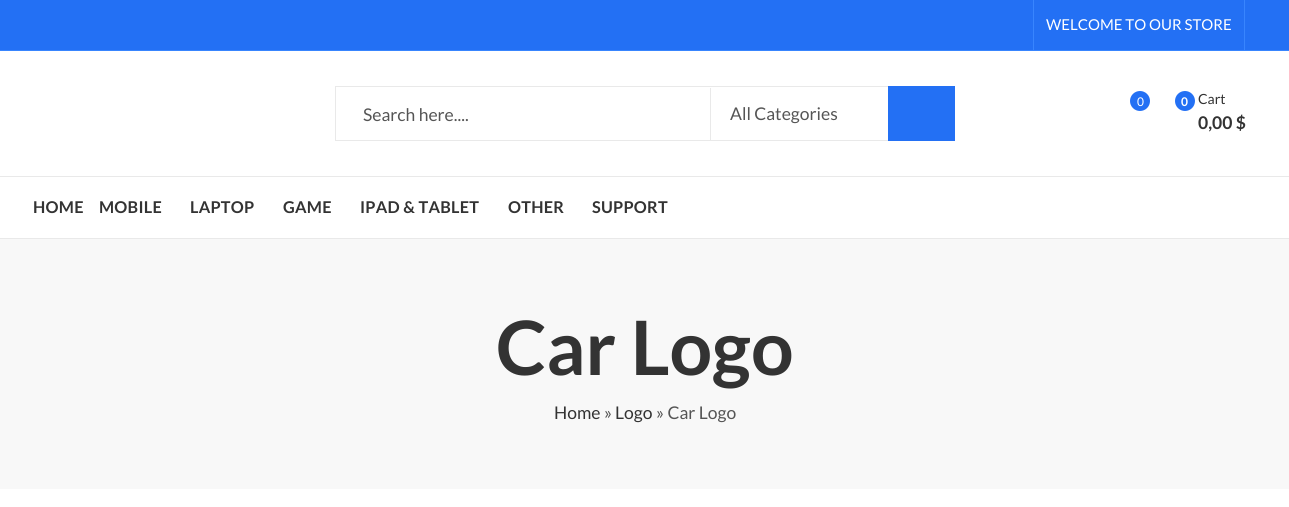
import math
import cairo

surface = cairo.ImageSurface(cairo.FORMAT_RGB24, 1289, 507)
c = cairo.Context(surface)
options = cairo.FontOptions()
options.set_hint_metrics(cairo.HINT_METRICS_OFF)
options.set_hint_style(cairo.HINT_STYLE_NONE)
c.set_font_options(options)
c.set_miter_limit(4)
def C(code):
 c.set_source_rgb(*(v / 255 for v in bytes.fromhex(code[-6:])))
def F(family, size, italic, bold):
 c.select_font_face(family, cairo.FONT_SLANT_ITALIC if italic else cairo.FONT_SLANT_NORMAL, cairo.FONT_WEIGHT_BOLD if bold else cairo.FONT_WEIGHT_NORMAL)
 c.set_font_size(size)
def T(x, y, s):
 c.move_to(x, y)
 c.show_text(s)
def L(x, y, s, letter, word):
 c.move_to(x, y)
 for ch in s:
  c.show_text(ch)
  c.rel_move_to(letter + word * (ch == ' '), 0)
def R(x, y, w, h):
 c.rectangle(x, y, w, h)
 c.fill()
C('ffffff')
c.paint()
C('2370f4')
R(0,0,1289,50)
C('3885fe')
R(0,50,1289,1)
R(1244,0,1,50)
R(1033,0,1,50)
F('Lato',15,0,0)
C('ffffff')
T(1046,30,'WELCOME TO OUR STORE')
c.rectangle(335.5,86.5,619,54)
C('e9e9e9')
c.set_line_width(1)
c.stroke()
R(710,88,1,52)
F('Lato',17.5,0,0)
C('555555')
T(363,121,'Search here....')
T(730,120,'All Categories')
C('2370f4')
R(888,86,67,55)
c.new_path()
c.arc(1140,101,10,0,2 * math.pi)
c.fill()
F('Lato',12,0,0)
C('ffffff')
T(1137,106,'0')
C('2370f4')
c.new_path()
c.arc(1185,101,10,0,2 * math.pi)
c.fill()
F('Lato',12,0,1)
C('ffffff')
T(1181,106,'0')
F('Lato',14,0,0)
C('333333')
T(1198,104,'Cart')
F('Lato',17.5,0,1)
T(1198,129,'0,00 $')
C('e9e9e9')
R(0,176,1289,1)
R(0,238,1289,1)
F('Lato',16.25,0,1)
C('333333')
L(33,213,'HOME',.25,0)
L(99,213,'MOBILE',.25,0)
L(190,213,'LAPTOP',.25,0)
L(283,213,'GAME',.25,0)
L(360,213,'IPAD & TABLET',.25,0)
L(508,213,'OTHER',.25,0)
L(592,213,'SUPPORT',.25,0)
C('f8f8f8')
R(0,239,1289,250)
F('Lato',75,0,1)
C('333333')
T(496,375,'Car Logo')
F('Lato',17.5,0,0)
T(554,419,'Home')
C('555555')
T(604,419,'»')
C('333333')
T(615,419,'Logo')
C('555555')
T(656,419,'» Car Logo')
surface.write_to_png('o.png')
